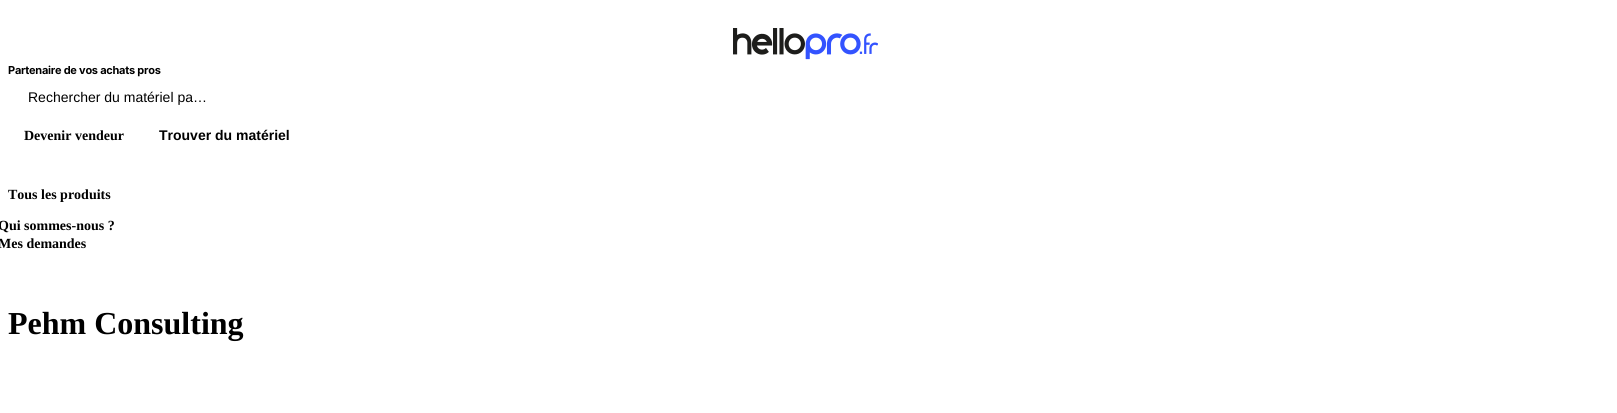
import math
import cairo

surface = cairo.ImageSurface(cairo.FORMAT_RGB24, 1617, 413)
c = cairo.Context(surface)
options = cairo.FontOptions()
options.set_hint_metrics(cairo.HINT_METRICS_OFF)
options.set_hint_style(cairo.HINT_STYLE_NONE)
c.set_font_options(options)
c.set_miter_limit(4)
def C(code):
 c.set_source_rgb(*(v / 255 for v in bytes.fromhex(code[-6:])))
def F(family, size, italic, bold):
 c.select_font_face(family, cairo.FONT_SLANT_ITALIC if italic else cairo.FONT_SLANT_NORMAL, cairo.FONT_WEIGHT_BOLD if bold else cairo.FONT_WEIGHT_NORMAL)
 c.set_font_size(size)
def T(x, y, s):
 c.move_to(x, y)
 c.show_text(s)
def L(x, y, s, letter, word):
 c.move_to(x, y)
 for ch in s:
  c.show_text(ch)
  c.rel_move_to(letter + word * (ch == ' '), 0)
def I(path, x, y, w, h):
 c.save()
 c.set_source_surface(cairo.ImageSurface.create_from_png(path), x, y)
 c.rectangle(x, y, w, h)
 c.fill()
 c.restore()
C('ffffff')
c.paint()
I('1.png',733,28,145,32)
F('Inter',11,0,1)
C('000000')
L(8,74,'Partenaire de vos achats pros',-.25,0)
F('Liberation Sans',14,0,0)
T(28,102,'Rechercher du matériel pa…')
F('Liberation Serif',14,0,1)
T(24,140,'Devenir vendeur')
F('Liberation Sans',14,0,1)
T(159,140,'Trouver du matériel')
F('Liberation Serif',14,0,1)
T(8,199,'Tous les produits')
T(-2,230,'Qui sommes-nous ?')
T(-2,248,'Mes demandes')
F('Liberation Serif',32,0,1)
T(8,334,'Pehm Consulting')
surface.write_to_png('o.png')
